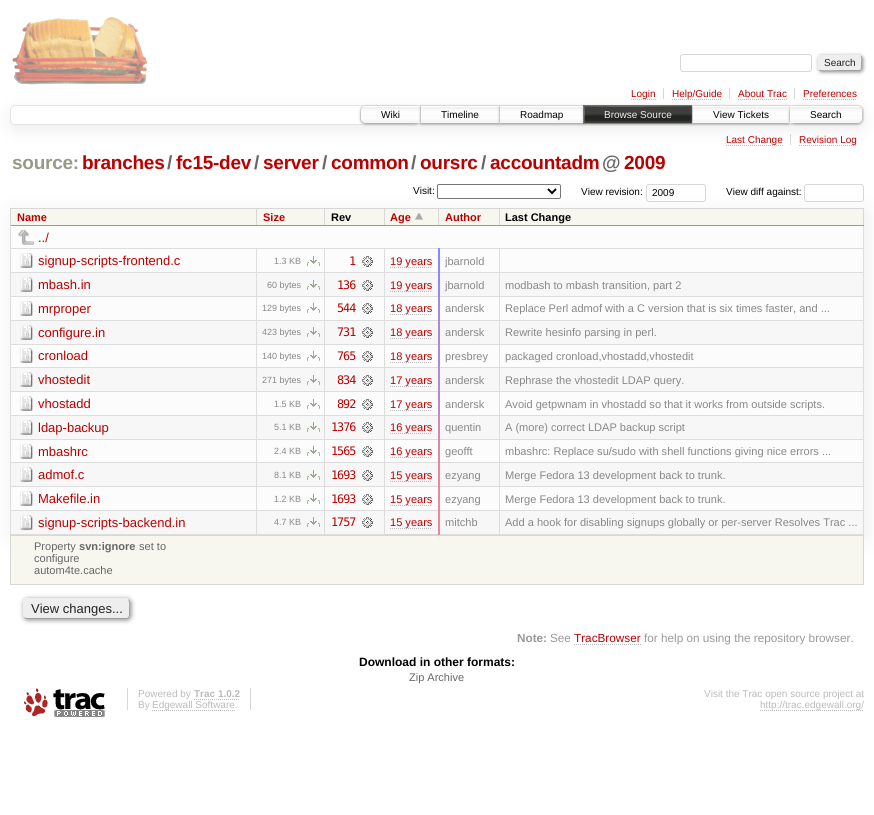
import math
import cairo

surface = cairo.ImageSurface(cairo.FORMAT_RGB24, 874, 815)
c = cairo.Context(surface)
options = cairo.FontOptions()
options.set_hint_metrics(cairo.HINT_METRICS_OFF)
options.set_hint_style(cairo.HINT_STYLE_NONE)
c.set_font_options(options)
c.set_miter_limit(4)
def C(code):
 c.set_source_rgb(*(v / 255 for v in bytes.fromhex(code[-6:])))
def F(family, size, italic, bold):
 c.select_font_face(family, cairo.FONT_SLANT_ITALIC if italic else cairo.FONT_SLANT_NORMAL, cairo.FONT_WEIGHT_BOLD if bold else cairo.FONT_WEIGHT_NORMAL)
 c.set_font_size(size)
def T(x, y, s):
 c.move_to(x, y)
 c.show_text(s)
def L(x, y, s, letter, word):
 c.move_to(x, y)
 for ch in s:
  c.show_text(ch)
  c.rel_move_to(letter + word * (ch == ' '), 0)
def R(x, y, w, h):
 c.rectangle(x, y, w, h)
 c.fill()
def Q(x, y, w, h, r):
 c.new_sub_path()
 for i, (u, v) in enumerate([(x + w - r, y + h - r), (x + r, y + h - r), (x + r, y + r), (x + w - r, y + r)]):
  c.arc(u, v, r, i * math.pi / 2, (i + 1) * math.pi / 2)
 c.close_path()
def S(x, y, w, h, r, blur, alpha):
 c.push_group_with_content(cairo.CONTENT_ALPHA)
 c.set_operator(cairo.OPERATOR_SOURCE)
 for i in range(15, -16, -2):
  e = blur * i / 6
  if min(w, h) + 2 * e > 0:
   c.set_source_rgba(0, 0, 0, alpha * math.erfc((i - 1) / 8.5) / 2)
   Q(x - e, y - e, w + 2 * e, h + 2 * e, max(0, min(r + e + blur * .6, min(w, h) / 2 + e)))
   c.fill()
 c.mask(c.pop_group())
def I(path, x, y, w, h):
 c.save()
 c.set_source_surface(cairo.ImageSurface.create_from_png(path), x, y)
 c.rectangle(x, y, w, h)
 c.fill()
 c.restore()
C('ffffff')
c.paint()
I('1.png',12,17,135,68)
Q(680.5,54.5,131,17,2.5)
C('d7d7d7')
c.set_line_width(1)
c.stroke()
C('888888')
S(819,56,44,16,3,2,1)
C('eeeeee')
Q(818,55,44,16,3)
c.fill()
c.new_path()
c.move_to(861,56)
c.curve_to(862.5,58,861.5,61,861.5,63)
c.curve_to(861.5,71.5,862,70.5,852.5,70.5)
c.line_to(840,70.5)
c.curve_to(837,70.5,821,71.5,819,70)
C('9f9f9f')
c.stroke()
c.new_path()
c.move_to(819,70)
c.curve_to(817.5,68,818.5,65,818.5,63)
c.curve_to(818.5,54.5,818,55.5,827.5,55.5)
c.line_to(840,55.5)
c.curve_to(843,55.5,859,54.5,861,56)
C('eeeeee')
c.stroke()
F('Liberation Sans',10,0,0)
C('222222')
T(824,66,'Search')
c.save()
c.set_fill_rule(cairo.FILL_RULE_EVEN_ODD)
c.new_path()
c.move_to(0,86)
c.line_to(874,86)
c.line_to(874,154)
c.line_to(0,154)
c.close_path()
c.move_to(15,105)
c.line_to(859,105)
c.curve_to(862,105,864,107,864,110)
c.line_to(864,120)
c.curve_to(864,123,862,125,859,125)
c.line_to(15,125)
c.curve_to(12,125,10,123,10,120)
c.line_to(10,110)
c.curve_to(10,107,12,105,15,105)
c.close_path()
c.clip()
C('eeeeee')
S(10,110,854,20,5,7.5,1)
c.restore()
C('d7d7d7')
R(663,88,1,11)
c.new_path()
c.move_to(631,99.5)
c.line_to(656,99.5)
C('bbbbbb')
c.set_dash([1,1])
c.stroke()
C('bb0000')
T(631,97,'Login')
C('d7d7d7')
R(729,88,1,11)
c.new_path()
c.move_to(672,99.5)
c.line_to(722,99.5)
C('bbbbbb')
c.stroke()
C('bb0000')
T(672,97,'Help/Guide')
C('d7d7d7')
R(794,88,1,11)
C('bb0000')
T(738,97,'About Trac')
c.new_path()
c.move_to(738,99.5)
c.line_to(787,99.5)
C('bbbbbb')
c.stroke()
C('bb0000')
T(803,97,'Preferences')
c.new_path()
c.move_to(803,99.5)
c.line_to(857,99.5)
C('bbbbbb')
c.stroke()
Q(10.5,105.5,853,19,4.5)
C('e4e4e4')
c.set_dash([])
c.stroke()
C('ffffff')
c.new_path()
c.move_to(365,105)
c.line_to(421,105)
c.line_to(421,124)
c.line_to(365,124)
c.curve_to(362,124,360,122,360,119)
c.line_to(360,110)
c.curve_to(360,107,362,105,365,105)
c.close_path()
c.fill()
I('2.png',360,107,60,17)
c.new_path()
c.move_to(365,105.5)
c.line_to(420.5,105.5)
c.line_to(420.5,123.5)
c.line_to(365,123.5)
c.curve_to(362.5,123.5,360.5,121.5,360.5,119)
c.line_to(360.5,110)
c.curve_to(360.5,107.5,362.5,105.5,365,105.5)
c.close_path()
C('e4e4e4')
c.stroke()
c.save()
c.set_fill_rule(cairo.FILL_RULE_EVEN_ODD)
c.new_path()
c.move_to(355,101)
c.line_to(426,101)
c.line_to(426,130)
c.line_to(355,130)
c.close_path()
c.move_to(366,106)
c.line_to(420,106)
c.line_to(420,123)
c.line_to(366,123)
c.curve_to(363,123,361,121,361,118)
c.line_to(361,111)
c.curve_to(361,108,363,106,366,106)
c.close_path()
c.clip()
C('999999')
S(361,107,59,17,5,1.5,1)
c.restore()
C('000000')
T(381,118,'Wiki')
C('ffffff')
R(421,108,2,15)
I('3.png',421,107,78,16)
c.rectangle(420.5,105.5,79,18)
C('e4e4e4')
c.stroke()
c.save()
c.set_fill_rule(cairo.FILL_RULE_EVEN_ODD)
c.new_path()
c.move_to(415,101)
c.line_to(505,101)
c.line_to(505,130)
c.line_to(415,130)
c.close_path()
c.move_to(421,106)
c.line_to(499,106)
c.line_to(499,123)
c.line_to(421,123)
c.close_path()
c.clip()
C('999999')
S(421,107,78,17,0,1.5,1)
c.restore()
C('000000')
T(441,118,'Timeline')
C('ffffff')
R(500,106,2,17)
I('4.png',500,107,83,16)
c.rectangle(499.5,105.5,84,18)
C('e4e4e4')
c.stroke()
c.save()
c.set_fill_rule(cairo.FILL_RULE_EVEN_ODD)
c.new_path()
c.move_to(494,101)
c.line_to(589,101)
c.line_to(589,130)
c.line_to(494,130)
c.close_path()
c.move_to(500,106)
c.line_to(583,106)
c.line_to(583,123)
c.line_to(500,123)
c.close_path()
c.clip()
C('999999')
S(500,107,83,17,0,1.5,1)
c.restore()
C('000000')
T(520,118,'Roadmap')
c.rectangle(583.5,105.5,109,18)
C('666666')
c.stroke()
C('999999')
S(584,107,108,17,0,1.5,1)
C('000000')
R(584,106,108,17)
I('5.png',584,106,108,17)
C('eeeeee')
T(604,118,'Browse Source')
C('ffffff')
R(693,106,2,17)
I('6.png',693,107,96,16)
c.rectangle(692.5,105.5,97,18)
C('e4e4e4')
c.stroke()
c.save()
c.set_fill_rule(cairo.FILL_RULE_EVEN_ODD)
c.new_path()
c.move_to(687,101)
c.line_to(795,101)
c.line_to(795,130)
c.line_to(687,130)
c.close_path()
c.move_to(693,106)
c.line_to(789,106)
c.line_to(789,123)
c.line_to(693,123)
c.close_path()
c.clip()
C('999999')
S(693,107,96,17,0,1.5,1)
c.restore()
C('000000')
T(713,118,'View Tickets')
C('ffffff')
c.new_path()
c.move_to(789,105)
c.line_to(858,105)
c.curve_to(861,105,863,107,863,110)
c.line_to(863,119)
c.curve_to(863,122,861,124,858,124)
c.line_to(789,124)
c.close_path()
c.fill()
I('7.png',790,107,73,17)
c.new_path()
c.move_to(789.5,105.5)
c.line_to(858,105.5)
c.curve_to(860.5,105.5,862.5,107.5,862.5,110)
c.line_to(862.5,119)
c.curve_to(862.5,121.5,860.5,123.5,858,123.5)
c.line_to(789.5,123.5)
c.close_path()
C('e4e4e4')
c.stroke()
c.save()
c.set_fill_rule(cairo.FILL_RULE_EVEN_ODD)
c.new_path()
c.move_to(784,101)
c.line_to(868,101)
c.line_to(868,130)
c.line_to(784,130)
c.close_path()
c.move_to(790,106)
c.line_to(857,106)
c.curve_to(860,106,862,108,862,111)
c.line_to(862,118)
c.curve_to(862,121,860,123,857,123)
c.line_to(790,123)
c.close_path()
c.clip()
C('999999')
S(790,107,72,17,5,1.5,1)
c.restore()
C('000000')
T(810,118,'Search')
C('d7d7d7')
R(790,134,1,11)
c.new_path()
c.move_to(726,145.5)
c.line_to(783,145.5)
C('bbbbbb')
c.set_dash([1,1])
c.stroke()
C('bb0000')
T(726,143,'Last Change')
c.new_path()
c.move_to(799,145.5)
c.line_to(857,145.5)
C('bbbbbb')
c.stroke()
C('bb0000')
T(799,143,'Revision Log')
F('Liberation Sans',19,0,1)
C('999988')
L(12,169,'source:',-.25,0)
C('bb0000')
L(82,169,'branches',-.25,0)
C('666666')
L(167,169,'/',-.25,0)
C('bb0000')
L(176,169,'fc15-dev',-.25,0)
C('666666')
L(254,169,'/',-.25,0)
C('bb0000')
L(263,169,'server',-.25,0)
C('666666')
L(322,169,'/',-.25,0)
C('bb0000')
L(331,169,'common',-.25,0)
C('666666')
L(411,169,'/',-.25,0)
C('bb0000')
L(420,169,'oursrc',-.25,0)
C('666666')
L(481,169,'/',-.25,0)
C('bb0000')
L(490,169,'accountadm',-.25,0)
C('666666')
L(602,169,'@',-.25,0)
C('bb0000')
L(624,169,'2009',-.25,0)
C('eeeeee')
S(13,212,854,327,0,10,1)
F('Liberation Sans',10,0,0)
C('000000')
T(413,194,'Visit:')
Q(437.5,184.5,123,14,1.5)
C('767676')
c.set_dash([])
c.stroke()
c.new_path()
c.move_to(548,189)
c.line_to(552,193)
c.line_to(556,189)
C('000000')
c.set_line_width(2)
c.stroke()
T(581,195,'View revision:')
Q(646.5,184.5,59,17,2.5)
C('d7d7d7')
c.set_line_width(1)
c.stroke()
C('000000')
T(652,196,'2009')
T(726,195,'View diff against:')
Q(804.5,184.5,59,17,2.5)
C('d7d7d7')
c.stroke()
R(385,534,53,1)
C('f7f7f0')
R(11,209,852,16)
C('d7d7d7')
R(499,208,365,1)
C('dddddd')
R(10,248,854,1)
R(10,272,854,1)
R(10,296,854,1)
R(10,320,854,1)
R(10,344,854,1)
R(10,367,854,1)
R(10,391,854,1)
R(10,415,854,1)
R(10,439,854,1)
R(10,462,854,1)
R(10,486,854,1)
R(10,510,854,1)
R(863,225,1,310)
C('d7d7d7')
R(863,208,1,18)
C('999999')
R(499,225,365,1)
C('d7d7d7')
R(499,208,1,18)
R(438,208,62,1)
C('999999')
R(438,225,62,1)
C('d7d7d7')
R(438,208,1,18)
R(384,208,55,1)
C('999999')
R(384,225,55,1)
C('d7d7d7')
R(384,208,1,18)
R(324,208,61,1)
C('999999')
R(324,225,61,1)
C('d7d7d7')
R(324,208,1,18)
R(256,208,69,1)
C('999999')
R(256,225,69,1)
C('d7d7d7')
R(256,208,1,18)
R(10,208,247,1)
C('fcfcfc')
R(11,249,852,23)
C('f7f7f7')
R(16,273,847,23)
C('fcfcfc')
R(11,297,852,23)
C('f7f7f7')
R(16,321,847,23)
C('fcfcfc')
R(11,345,852,22)
C('f7f7f7')
R(16,368,847,23)
C('fcfcfc')
R(11,392,852,23)
C('f7f7f7')
R(16,416,847,23)
C('fcfcfc')
R(11,440,852,22)
C('f7f7f7')
R(16,463,847,23)
C('fcfcfc')
R(11,487,852,23)
C('f7f7f7')
R(11,511,852,23)
C('dddddd')
R(384,248,1,287)
R(324,534,61,1)
R(324,248,1,287)
R(256,534,69,1)
R(256,248,1,287)
R(10,534,247,1)
R(10,225,1,310)
C('999999')
R(10,225,247,1)
C('d7d7d7')
R(10,208,1,18)
F('Liberation Sans',11,0,1)
C('bb0000')
T(17,221,'Name')
T(263,221,'Size')
C('000000')
T(331,221,'Rev')
C('bb0000')
T(390,221,'Age')
I('8.png',415,213,8,7)
T(445,221,'Author')
C('000000')
T(505,221,'Last Change')
C('fcfcfc')
R(11,226,852,22)
I('9.png',18,230,16,15)
F('Liberation Sans',13,0,0)
C('bb0000')
T(38,242,'../')
I('10.png',20,253,13,15)
T(38,265,'signup-scripts-frontend.c')
F('Liberation Sans',9,0,0)
C('888888')
T(274,264,'1.3 KB')
I('11.png',307,256,13,10)
F('DejaVu Sans Mono',11.75,0,0)
C('bb0000')
L(349,265,'1',-1,0)
I('12.png',362,256,11,11)
C('dddddd')
R(499,534,365,1)
R(499,248,1,287)
R(438,534,62,1)
C('eb889b')
R(438,510,2,25)
C('e7889f')
R(438,462,2,50)
C('de88a8')
R(438,438,2,26)
C('d388b3')
R(438,414,2,26)
C('bc88ca')
R(438,391,2,25)
C('b588d1')
R(438,367,2,26)
C('af88d7')
R(438,343,2,26)
C('ac88da')
R(438,319,2,26)
C('a588e1')
R(438,296,2,25)
C('8f88f7')
R(438,272,2,26)
C('8888ff')
R(438,248,2,26)
c.new_path()
c.move_to(390,267.5)
c.line_to(432,267.5)
C('bbbbbb')
c.set_dash([1,1])
c.stroke()
F('Liberation Sans',11.05,0,0)
C('bb0000')
T(390,265,'19 years')
C('888888')
T(445,265,'jbarnold')
I('13.png',20,277,13,15)
F('Liberation Sans',13,0,0)
C('bb0000')
T(38,289,'mbash.in')
F('Liberation Sans',9,0,0)
C('888888')
T(267,288,'60 bytes')
I('14.png',307,280,13,10)
F('DejaVu Sans Mono',11.75,0,0)
C('bb0000')
L(337,289,'136',-1,0)
I('15.png',362,280,11,11)
c.new_path()
c.move_to(390,291.5)
c.line_to(432,291.5)
C('bbbbbb')
c.stroke()
F('Liberation Sans',11.05,0,0)
C('bb0000')
T(390,289,'19 years')
C('888888')
T(445,289,'jbarnold')
T(505,289,'modbash to mbash transition, part 2')
I('10.png',20,301,13,15)
F('Liberation Sans',13,0,0)
C('bb0000')
T(38,313,'mrproper')
F('Liberation Sans',9,0,0)
C('888888')
T(262,311,'129 bytes')
I('11.png',307,303,13,10)
F('DejaVu Sans Mono',11.75,0,0)
C('bb0000')
L(337,312,'544',-1,0)
I('12.png',362,303,11,11)
c.new_path()
c.move_to(390,314.5)
c.line_to(432,314.5)
C('bbbbbb')
c.stroke()
F('Liberation Sans',11.05,0,0)
C('bb0000')
T(390,312,'18 years')
C('888888')
T(445,312,'andersk')
T(505,312,'Replace Perl admof with a C version that is six times faster, and ...')
I('13.png',20,325,13,15)
F('Liberation Sans',13,0,0)
C('bb0000')
T(38,337,'configure.in')
F('Liberation Sans',9,0,0)
C('888888')
T(262,335,'423 bytes')
I('14.png',307,327,13,10)
F('DejaVu Sans Mono',11.75,0,0)
C('bb0000')
L(337,336,'731',-1,0)
I('15.png',362,327,11,11)
c.new_path()
c.move_to(390,338.5)
c.line_to(432,338.5)
C('bbbbbb')
c.stroke()
F('Liberation Sans',11.05,0,0)
C('bb0000')
T(390,336,'18 years')
C('888888')
T(445,336,'andersk')
T(505,336,'Rewrite hesinfo parsing in perl.')
I('10.png',20,348,13,15)
F('Liberation Sans',13,0,0)
C('bb0000')
T(38,360,'cronload')
F('Liberation Sans',9,0,0)
C('888888')
T(262,359,'140 bytes')
I('11.png',307,351,13,10)
F('DejaVu Sans Mono',11.75,0,0)
C('bb0000')
L(337,360,'765',-1,0)
I('12.png',362,351,11,11)
c.new_path()
c.move_to(390,362.5)
c.line_to(432,362.5)
C('bbbbbb')
c.stroke()
F('Liberation Sans',11.05,0,0)
C('bb0000')
T(390,360,'18 years')
C('888888')
T(445,360,'presbrey')
T(505,360,'packaged cronload,vhostadd,vhostedit')
I('13.png',20,372,13,15)
F('Liberation Sans',13,0,0)
C('bb0000')
T(38,384,'vhostedit')
F('Liberation Sans',9,0,0)
C('888888')
T(262,383,'271 bytes')
I('14.png',307,375,13,10)
F('DejaVu Sans Mono',11.75,0,0)
C('bb0000')
L(337,384,'834',-1,0)
I('15.png',362,375,11,11)
c.new_path()
c.move_to(390,386.5)
c.line_to(432,386.5)
C('bbbbbb')
c.stroke()
F('Liberation Sans',11.05,0,0)
C('bb0000')
T(390,384,'17 years')
C('888888')
T(445,384,'andersk')
T(505,384,'Rephrase the vhostedit LDAP query.')
I('10.png',20,396,13,15)
F('Liberation Sans',13,0,0)
C('bb0000')
T(38,408,'vhostadd')
F('Liberation Sans',9,0,0)
C('888888')
T(274,407,'1.5 KB')
I('11.png',307,399,13,10)
F('DejaVu Sans Mono',11.75,0,0)
C('bb0000')
L(337,408,'892',-1,0)
I('12.png',362,399,11,11)
c.new_path()
c.move_to(390,410.5)
c.line_to(432,410.5)
C('bbbbbb')
c.stroke()
F('Liberation Sans',11.05,0,0)
C('bb0000')
T(390,408,'17 years')
C('888888')
T(445,408,'andersk')
T(505,408,'Avoid getpwnam in vhostadd so that it works from outside scripts.')
I('13.png',20,420,13,15)
F('Liberation Sans',13,0,0)
C('bb0000')
T(38,432,'ldap-backup')
F('Liberation Sans',9,0,0)
C('888888')
T(274,430,'5.1 KB')
I('14.png',307,422,13,10)
F('DejaVu Sans Mono',11.75,0,0)
C('bb0000')
L(331,431,'1376',-1,0)
I('15.png',362,422,11,11)
c.new_path()
c.move_to(390,433.5)
c.line_to(432,433.5)
C('bbbbbb')
c.stroke()
F('Liberation Sans',11.05,0,0)
C('bb0000')
T(390,431,'16 years')
C('888888')
T(445,431,'quentin')
T(505,431,'A (more) correct LDAP backup script')
I('10.png',20,444,13,15)
F('Liberation Sans',13,0,0)
C('bb0000')
T(38,456,'mbashrc')
F('Liberation Sans',9,0,0)
C('888888')
T(274,454,'2.4 KB')
I('11.png',307,446,13,10)
F('DejaVu Sans Mono',11.75,0,0)
C('bb0000')
L(331,455,'1565',-1,0)
I('12.png',362,446,11,11)
c.new_path()
c.move_to(390,457.5)
c.line_to(432,457.5)
C('bbbbbb')
c.stroke()
F('Liberation Sans',11.05,0,0)
C('bb0000')
T(390,455,'16 years')
C('888888')
T(445,455,'geofft')
T(505,455,'mbashrc: Replace su/sudo with shell functions giving nice errors ...')
I('13.png',20,467,13,15)
F('Liberation Sans',13,0,0)
C('bb0000')
T(38,479,'admof.c')
F('Liberation Sans',9,0,0)
C('888888')
T(274,478,'8.1 KB')
I('14.png',307,470,13,10)
F('DejaVu Sans Mono',11.75,0,0)
C('bb0000')
L(331,479,'1693',-1,0)
I('15.png',362,470,11,11)
c.new_path()
c.move_to(390,481.5)
c.line_to(432,481.5)
C('bbbbbb')
c.stroke()
F('Liberation Sans',11.05,0,0)
C('bb0000')
T(390,479,'15 years')
C('888888')
T(445,479,'ezyang')
T(505,479,'Merge Fedora 13 development back to trunk.')
I('10.png',20,491,13,15)
F('Liberation Sans',13,0,0)
C('bb0000')
T(38,503,'Makefile.in')
F('Liberation Sans',9,0,0)
C('888888')
T(274,502,'1.2 KB')
I('11.png',307,494,13,10)
F('DejaVu Sans Mono',11.75,0,0)
C('bb0000')
L(331,503,'1693',-1,0)
I('12.png',362,494,11,11)
c.new_path()
c.move_to(390,505.5)
c.line_to(432,505.5)
C('bbbbbb')
c.stroke()
F('Liberation Sans',11.05,0,0)
C('bb0000')
T(390,503,'15 years')
C('888888')
T(445,503,'ezyang')
T(505,503,'Merge Fedora 13 development back to trunk.')
I('13.png',20,515,13,15)
F('Liberation Sans',13,0,0)
C('bb0000')
T(38,527,'signup-scripts-backend.in')
F('Liberation Sans',9,0,0)
C('888888')
T(274,525,'4.7 KB')
I('14.png',307,517,13,10)
F('DejaVu Sans Mono',11.75,0,0)
C('bb0000')
L(331,526,'1757',-1,0)
I('15.png',362,517,11,11)
c.new_path()
c.move_to(390,528.5)
c.line_to(432,528.5)
C('bbbbbb')
c.stroke()
F('Liberation Sans',11.05,0,0)
C('bb0000')
T(390,526,'15 years')
C('888888')
T(445,526,'mitchb')
T(505,526,'Add a hook for disabling signups globally or per-server Resolves Trac ...')
C('f7f7f0')
R(11,536,852,48)
C('d7d7d7')
R(10,535,854,1)
R(863,535,1,50)
R(10,584,854,1)
R(10,535,1,50)
C('666666')
T(34,550,'Property')
F('Liberation Sans',11.05,0,1)
T(79,550,'svn:ignore')
F('Liberation Sans',11.05,0,0)
T(139,550,'set to')
T(34,562,'configure')
T(34,574,'autom4te.cache')
C('888888')
S(24,599,107,21,4,2.5,1)
C('eeeeee')
Q(23,598,107,21,4)
c.fill()
c.new_path()
c.move_to(128.5,599.5)
c.curve_to(130.5,601.5,129.5,608,129.5,610.5)
c.curve_to(129.5,613.5,130.5,618.5,126,618.5)
c.line_to(26,618.5)
c.line_to(24.5,617.5)
C('9f9f9f')
c.set_dash([])
c.stroke()
c.new_path()
c.move_to(24.5,617.5)
c.curve_to(22.5,615.5,23.5,609,23.5,606.5)
c.curve_to(23.5,603.5,22.5,598.5,27,598.5)
c.line_to(127,598.5)
c.line_to(128.5,599.5)
C('eeeeee')
c.stroke()
F('Liberation Sans',13,0,0)
C('222222')
T(31,613,'View changes...')
F('Liberation Sans',11.75,0,1)
C('999999')
T(517,642,'Note:')
F('Liberation Sans',11.75,0,0)
T(550,642,'See')
C('bb0000')
T(574,642,'TracBrowser')
c.new_path()
c.move_to(574,644.5)
c.line_to(641,644.5)
C('bbbbbb')
c.set_dash([1,1])
c.stroke()
C('999999')
T(644,642,'for help on using the repository browser.')
F('Liberation Sans',12,0,1)
C('000000')
T(359,666,'Download in other formats:')
F('Liberation Sans',11,0,0)
C('666666')
T(409,681,'Zip Archive')
I('16.png',24,688,81,29)
C('d7d7d7')
R(250,688,1,22)
R(127,688,1,22)
F('Liberation Sans',10,0,0)
C('bbbbbb')
T(138,697,'Powered by')
F('Liberation Sans',10,0,1)
T(194,697,'Trac 1.0.2')
c.new_path()
c.move_to(194,699.5)
c.line_to(240,699.5)
c.stroke()
F('Liberation Sans',10,0,0)
T(138,708,'By')
c.new_path()
c.move_to(152,710.5)
c.line_to(235,710.5)
c.stroke()
T(152,708,'Edgewall Software.')
T(704,697,'Visit the Trac open source project at')
c.new_path()
c.move_to(760,710.5)
c.line_to(864,710.5)
c.stroke()
T(760,708,'http://trac.edgewall.org/')
surface.write_to_png('o.png')
